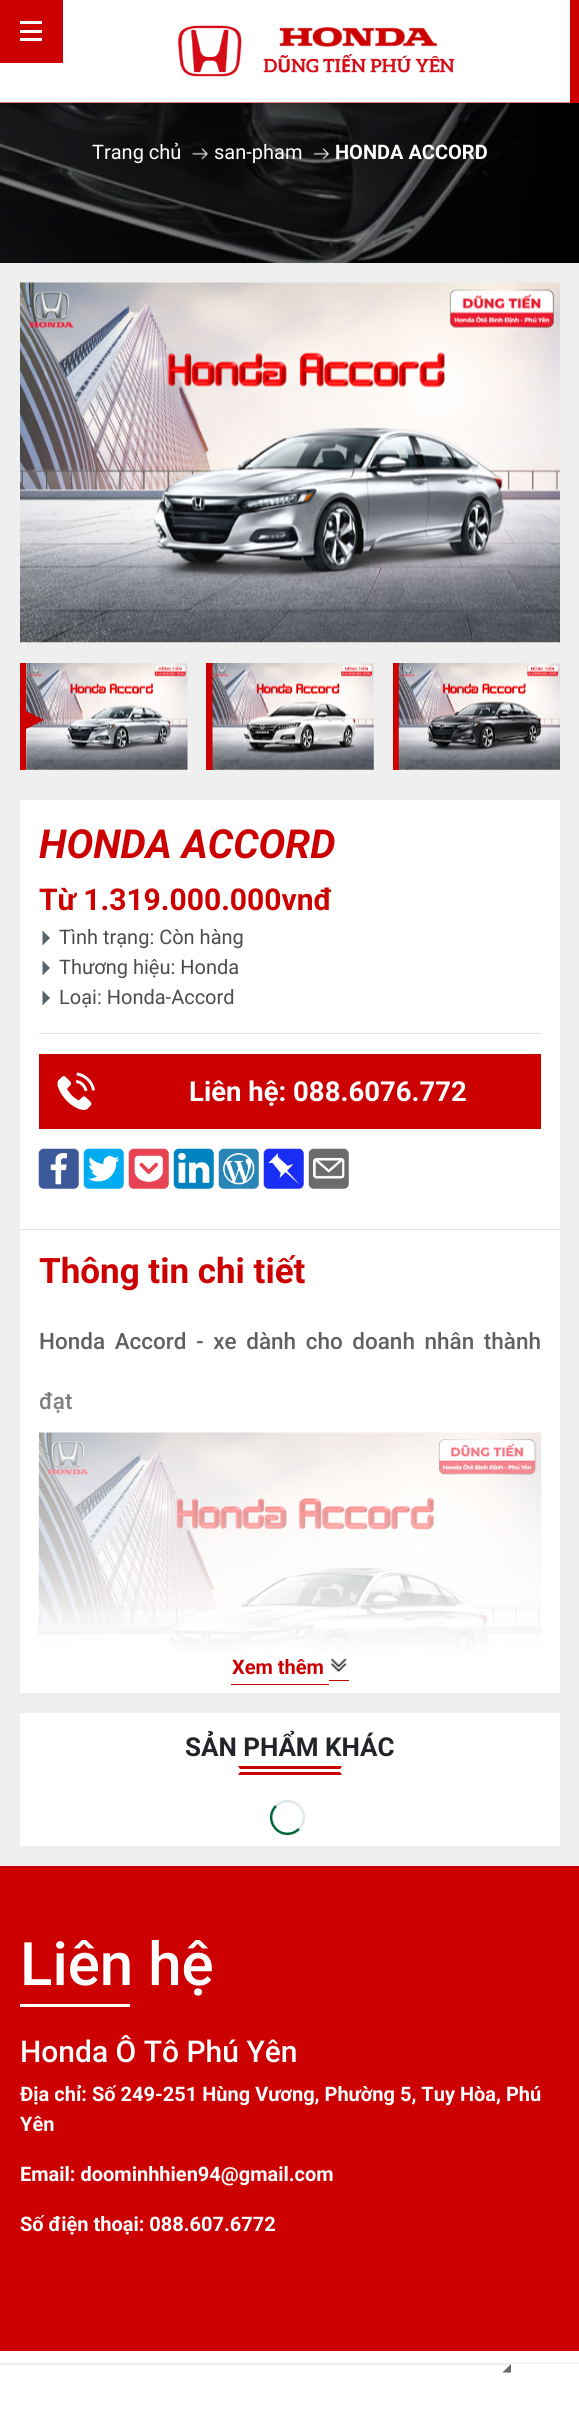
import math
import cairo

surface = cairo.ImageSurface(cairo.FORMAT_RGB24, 579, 2415)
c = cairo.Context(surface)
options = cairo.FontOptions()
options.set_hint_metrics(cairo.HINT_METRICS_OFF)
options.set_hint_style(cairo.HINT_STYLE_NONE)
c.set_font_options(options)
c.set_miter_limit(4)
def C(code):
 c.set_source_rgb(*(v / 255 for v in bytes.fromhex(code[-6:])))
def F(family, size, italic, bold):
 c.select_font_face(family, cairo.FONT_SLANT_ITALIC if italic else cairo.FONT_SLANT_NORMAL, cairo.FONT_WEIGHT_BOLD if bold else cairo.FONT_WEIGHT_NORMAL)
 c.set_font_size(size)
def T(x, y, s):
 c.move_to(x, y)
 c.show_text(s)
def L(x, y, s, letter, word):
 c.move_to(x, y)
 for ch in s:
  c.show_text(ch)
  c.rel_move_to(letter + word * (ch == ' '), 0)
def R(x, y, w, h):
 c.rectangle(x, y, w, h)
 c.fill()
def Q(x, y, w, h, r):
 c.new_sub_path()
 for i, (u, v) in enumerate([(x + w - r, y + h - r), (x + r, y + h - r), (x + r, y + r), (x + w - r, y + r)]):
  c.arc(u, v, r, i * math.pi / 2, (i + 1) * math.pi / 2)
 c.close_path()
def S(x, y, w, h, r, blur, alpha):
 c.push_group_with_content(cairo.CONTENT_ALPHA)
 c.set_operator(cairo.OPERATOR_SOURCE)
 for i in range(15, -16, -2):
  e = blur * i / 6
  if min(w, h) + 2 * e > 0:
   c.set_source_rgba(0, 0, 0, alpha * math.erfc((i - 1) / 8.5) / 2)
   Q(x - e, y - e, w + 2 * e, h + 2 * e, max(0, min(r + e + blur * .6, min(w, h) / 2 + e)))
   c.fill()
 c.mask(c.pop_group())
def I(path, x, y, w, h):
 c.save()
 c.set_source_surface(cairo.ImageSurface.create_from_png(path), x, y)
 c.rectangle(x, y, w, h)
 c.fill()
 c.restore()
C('efefef')
c.paint()
C('cc0000')
R(0,0,579,103)
I('1.png',0,0,570,103)
R(0,0,63,63)
C('ffffff')
R(20,21,22,3)
R(20,30,22,3)
R(20,38,22,3)
R(0,2351,579,64)
c.save()
c.rectangle(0,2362,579,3)
c.clip()
C('2d343a')
S(-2,2363,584,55,0,1,.1)
c.restore()
R(511,2364,68,1)
C('686868')
c.new_path()
c.move_to(511,2372.5)
c.line_to(502.5,2372.5)
c.line_to(511,2364)
c.close_path()
c.fill()
I('2.png',0,103,579,160)
F('Roboto',20,0,0)
C('ffffff')
T(92,159,'Trang chủ')
I('3.png',192,148,16,12)
T(214,159,'san-pham')
I('4.png',313,148,16,12)
F('Roboto',20,0,1)
T(335,159,'HONDA ACCORD')
I('5.png',20,282,540,361)
C('cc0000')
R(20,663,6,107)
I('6.png',26,663,162,107)
c.new_path()
c.move_to(26,729)
c.line_to(26,711)
c.line_to(44,720)
c.close_path()
c.fill()
R(206,663,7,107)
I('7.png',212,663,162,107)
R(393,663,6,107)
I('8.png',398,663,162,107)
C('ffffff')
R(20,800,540,893)
F('Roboto',40,1,1)
C('cc0000')
T(39,858,'HONDA ACCORD')
F('Roboto',30,0,1)
T(39,910,'Từ 1.319.000.000vnđ')
C('59646a')
c.new_path()
c.move_to(42.5,945.5)
c.line_to(42.5,930.5)
c.line_to(50,938)
c.close_path()
c.fill()
F('Roboto',20,0,0)
C('4c4c4c')
T(59,944,'Tình trạng: Còn hàng')
C('59646a')
c.new_path()
c.move_to(42.5,975.5)
c.line_to(42.5,960.5)
c.line_to(50,968)
c.close_path()
c.fill()
C('4c4c4c')
T(59,974,'Thương hiệu: Honda')
C('59646a')
c.new_path()
c.move_to(42.5,1005.5)
c.line_to(42.5,990.5)
c.line_to(50,998)
c.close_path()
c.fill()
C('4c4c4c')
T(59,1004,'Loại: Honda-Accord')
C('dee2e6')
R(39,1033,502,1)
C('cc0000')
R(39,1054,502,75)
I('9.png',57,1072,38,38)
F('Roboto',27.5,0,1)
C('ffffff')
T(189,1101,'Liên hệ: 088.6076.772')
I('10.png',38,1148,41,41)
I('11.png',83,1148,41,41)
I('12.png',128,1148,41,41)
I('13.png',173,1148,41,41)
I('14.png',218,1148,41,41)
I('15.png',263,1148,41,41)
I('16.png',308,1148,41,41)
C('dee2e6')
R(20,1229,540,1)
F('Roboto',35,0,1)
C('cc0000')
T(39,1283,'Thông tin chi tiết')
F('Roboto Medium',22.5,0,0)
C('4c4c4c')
L(39,1349,'Honda Accord - xe dành cho doanh nhân thành',0,4)
T(39,1409,'đạt')
I('17.png',38,1432,504,221)
gradient = cairo.LinearGradient(290,1303,290,1653)
gradient.add_color_stop_rgba(0,1,1,1,0)
gradient.add_color_stop_rgba(1,1,1,1,1)
c.set_source(gradient)
R(39,1332,502,321)
F('Roboto',20,0,1)
C('cc0000')
T(232,1674,'Xem thêm')
R(231,1684,98,1)
R(329,1680,20,1)
I('18.png',331,1658,16,14)
C('ffffff')
R(20,1713,540,133)
F('Roboto',26,0,1)
C('212529')
T(185,1756,'SẢN PHẨM KHÁC')
C('cc0000')
c.new_path()
c.move_to(238,1766)
c.line_to(342,1766)
c.line_to(340,1769)
c.line_to(240,1769)
c.close_path()
c.fill()
c.new_path()
c.move_to(342,1775)
c.line_to(238,1775)
c.line_to(240,1772)
c.line_to(340,1772)
c.close_path()
c.fill()
c.new_path()
c.move_to(276,1806)
c.curve_to(287.5,1794.5,306.5,1805,303.5,1820.5)
c.curve_to(303,1824,301,1826.5,299,1829)
C('e1e8ed')
c.set_line_width(2.5)
c.stroke()
c.new_path()
c.move_to(299,1829)
c.curve_to(296.5,1831,294,1833,290.5,1833.5)
c.curve_to(275,1836.5,264.5,1817.5,276,1806)
C('006738')
c.stroke()
C('cc0000')
R(0,1866,579,485)
F('Roboto Medium',60,0,0)
C('ffffff')
T(20,1985,'Liên hệ')
R(20,2004,110,3)
F('Roboto Medium',30,0,0)
T(20,2062,'Honda Ô Tô Phú Yên')
F('Roboto',20,0,1)
T(20,2101,'Địa chỉ: Số 249-251 Hùng Vương, Phường 5, Tuy Hòa, Phú')
T(20,2131,'Yên')
T(20,2181,'Email: doominhhien94@gmail.com')
T(20,2231,'Số điện thoại: 088.607.6772')
surface.write_to_png('o.png')
